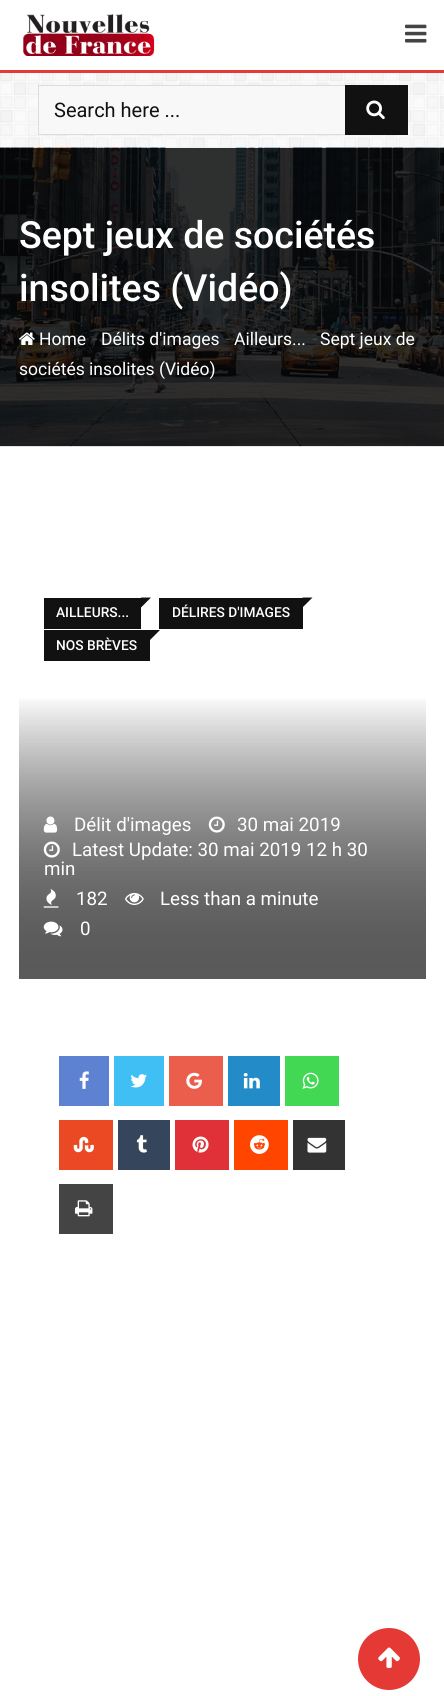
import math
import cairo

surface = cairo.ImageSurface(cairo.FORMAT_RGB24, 444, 1696)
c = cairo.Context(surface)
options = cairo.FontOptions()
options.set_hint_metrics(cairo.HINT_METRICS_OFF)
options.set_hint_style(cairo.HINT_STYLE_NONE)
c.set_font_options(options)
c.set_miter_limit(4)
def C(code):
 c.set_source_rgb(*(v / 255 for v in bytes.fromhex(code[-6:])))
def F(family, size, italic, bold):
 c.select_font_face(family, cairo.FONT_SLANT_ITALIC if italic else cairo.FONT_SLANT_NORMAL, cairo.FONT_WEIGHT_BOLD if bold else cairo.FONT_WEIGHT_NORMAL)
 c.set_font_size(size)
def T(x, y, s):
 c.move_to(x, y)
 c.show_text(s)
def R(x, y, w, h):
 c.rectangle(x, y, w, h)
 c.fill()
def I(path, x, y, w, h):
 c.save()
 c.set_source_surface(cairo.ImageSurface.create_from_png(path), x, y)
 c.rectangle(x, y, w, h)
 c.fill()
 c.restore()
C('ffffff')
c.paint()
I('1.png',0,73,444,75)
C('e53935')
R(0,70,444,3)
I('2.png',23,14,132,42)
I('3.png',405,24,22,19)
C('f8f8f8')
R(39,86,306,48)
c.rectangle(38.5,85.5,369,49)
C('dcdcdc')
c.set_line_width(1)
c.stroke()
F('Roboto',20,0,0)
C('111111')
T(54,117,'Search here ...')
R(345,85,63,50)
I('4.png',366,100,19,20)
I('5.png',0,147,444,300)
F('Roboto Medium',37.5,0,0)
C('ffffff')
T(19,248,'Sept jeux de sociétés')
T(19,301,'insolites (Vidéo)')
I('6.png',19,332,16,13)
F('Roboto',17.5,0,0)
T(39,345,'Home')
F('Roboto',18.75,1,0)
C('444444')
T(91,345,'-')
F('Roboto',17.5,0,0)
C('ffffff')
T(101,345,'Délits d\'images')
F('Roboto',18.75,1,0)
C('444444')
T(224,345,'-')
F('Roboto',17.5,0,0)
C('ffffff')
T(234,345,'Ailleurs...')
F('Roboto',18.75,1,0)
C('444444')
T(311,345,'-')
F('Roboto',17.5,0,0)
C('ffffff')
T(320,345,'Sept jeux de')
T(19,375,'sociétés insolites (Vidéo)')
C('111111')
R(44,598,97,31)
c.new_path()
c.move_to(141,597.5)
c.line_to(151,597.5)
c.line_to(141,607.5)
c.close_path()
c.fill()
F('Roboto Medium',13.75,0,0)
C('ffffff')
T(56,617,'AILLEURS...')
C('111111')
R(159,598,144,31)
c.new_path()
c.move_to(302.5,597.5)
c.line_to(312.5,597.5)
c.line_to(302.5,607.5)
c.close_path()
c.fill()
C('ffffff')
T(172,617,'DÉLIRES D\'IMAGES')
C('111111')
R(44,630,106,31)
c.new_path()
c.move_to(150,630)
c.line_to(160,630)
c.line_to(150,640)
c.close_path()
c.fill()
C('ffffff')
T(56,650,'NOS BRÈVES')
gradient = cairo.LinearGradient(223,694,223,979)
gradient.add_color_stop_rgba(0,1,1,1,1)
gradient.add_color_stop_rgba(1,0.349,0.349,0.349,1)
c.set_source(gradient)
R(19,698,407,279)
gradient = cairo.LinearGradient(223,694,223,979)
gradient.add_color_stop_rgba(0,0.349,0.349,0.349,0)
gradient.add_color_stop_rgba(1,0.349,0.349,0.349,1)
c.set_source(gradient)
R(19,700,407,279)
I('7.png',43,816,15,17)
F('Roboto',18.75,0,0)
C('ffffff')
T(74,831,'Délit d\'images')
I('8.png',208,816,17,17)
T(237,831,'30 mai 2019')
I('9.png',43,841,17,17)
T(72,856,'Latest Update: 30 mai 2019 12 h 30')
T(44,875,'min')
I('10.png',43,889,16,19)
T(76,905,'182')
I('11.png',125,892,19,13)
T(160,905,'Less than a minute')
I('12.png',43,921,20,16)
T(80,935,'0')
C('5d82d1')
R(59,1056,50,50)
I('13.png',79,1071,10,18)
C('40bff5')
R(114,1056,50,50)
I('14.png',130,1074,17,14)
C('eb5e4c')
R(169,1056,54,50)
I('15.png',186,1072,16,17)
C('238cc8')
R(228,1056,52,50)
I('16.png',243,1073,17,16)
C('43d854')
R(285,1056,54,50)
I('17.png',302,1072,17,17)
C('eb4924')
R(59,1120,54,50)
I('18.png',73,1136,21,17)
C('35465c')
R(118,1120,52,50)
I('19.png',136,1135,11,18)
C('e13138')
R(175,1120,54,50)
I('20.png',192,1136,17,17)
C('ff4500')
R(234,1120,54,50)
I('21.png',250,1135,19,19)
C('333333')
R(293,1120,52,50)
I('22.png',307,1137,20,16)
C('444444')
R(59,1184,54,50)
I('23.png',75,1200,18,17)
C('e53935')
c.arc(389,1659,29.5,0,2 * math.pi)
c.fill_preserve()
c.set_line_width(3)
c.stroke()
I('24.png',378,1647,22,22)
surface.write_to_png('o.png')
